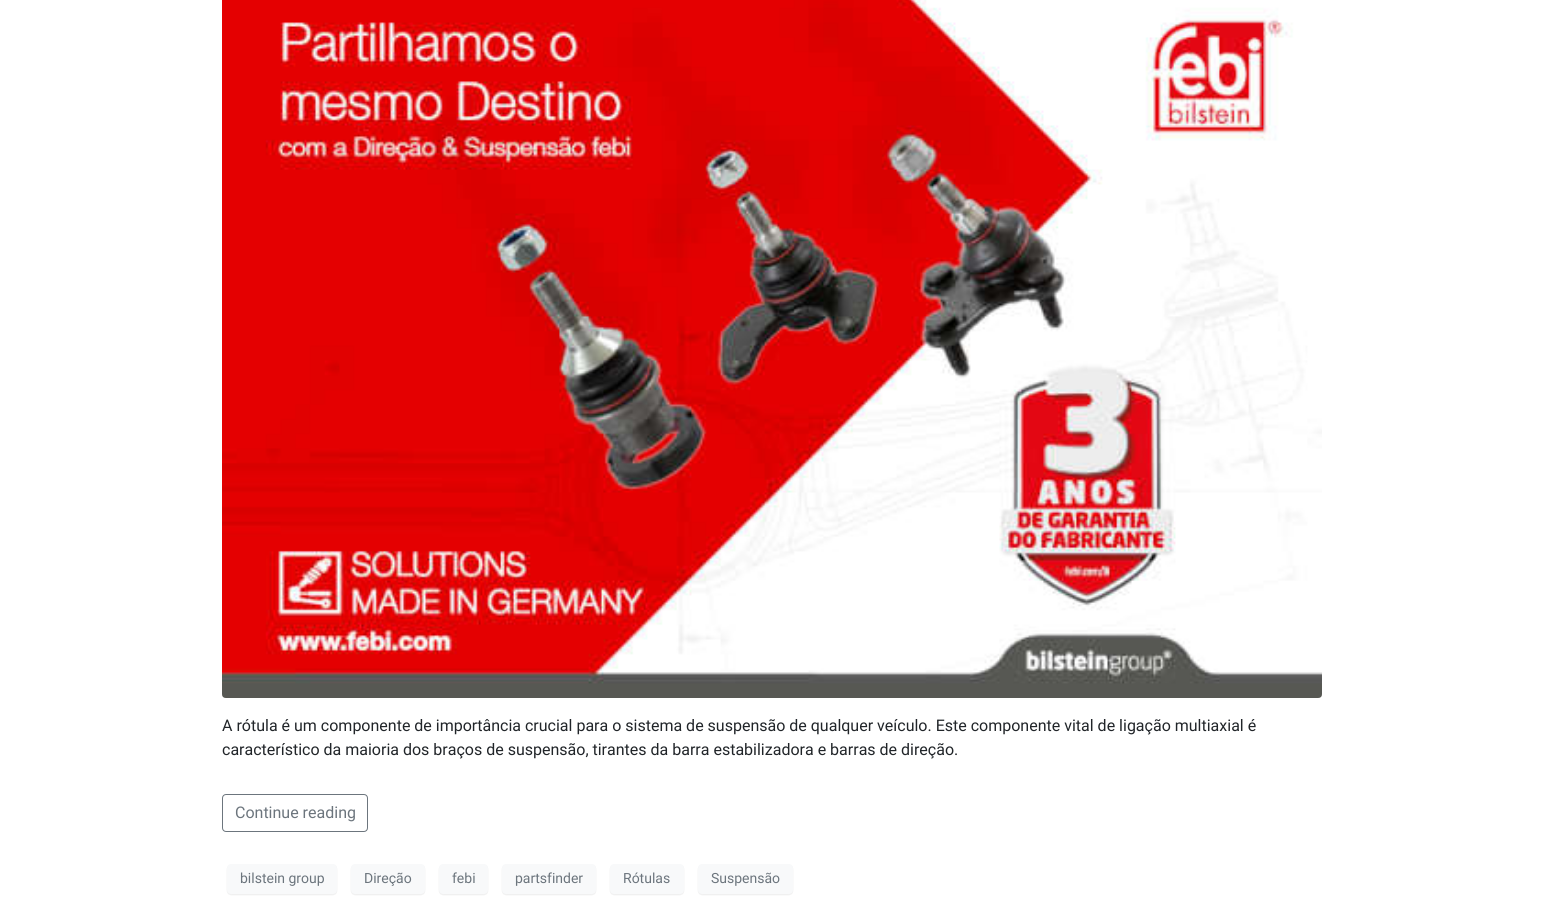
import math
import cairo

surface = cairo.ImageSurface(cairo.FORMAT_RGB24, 1543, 901)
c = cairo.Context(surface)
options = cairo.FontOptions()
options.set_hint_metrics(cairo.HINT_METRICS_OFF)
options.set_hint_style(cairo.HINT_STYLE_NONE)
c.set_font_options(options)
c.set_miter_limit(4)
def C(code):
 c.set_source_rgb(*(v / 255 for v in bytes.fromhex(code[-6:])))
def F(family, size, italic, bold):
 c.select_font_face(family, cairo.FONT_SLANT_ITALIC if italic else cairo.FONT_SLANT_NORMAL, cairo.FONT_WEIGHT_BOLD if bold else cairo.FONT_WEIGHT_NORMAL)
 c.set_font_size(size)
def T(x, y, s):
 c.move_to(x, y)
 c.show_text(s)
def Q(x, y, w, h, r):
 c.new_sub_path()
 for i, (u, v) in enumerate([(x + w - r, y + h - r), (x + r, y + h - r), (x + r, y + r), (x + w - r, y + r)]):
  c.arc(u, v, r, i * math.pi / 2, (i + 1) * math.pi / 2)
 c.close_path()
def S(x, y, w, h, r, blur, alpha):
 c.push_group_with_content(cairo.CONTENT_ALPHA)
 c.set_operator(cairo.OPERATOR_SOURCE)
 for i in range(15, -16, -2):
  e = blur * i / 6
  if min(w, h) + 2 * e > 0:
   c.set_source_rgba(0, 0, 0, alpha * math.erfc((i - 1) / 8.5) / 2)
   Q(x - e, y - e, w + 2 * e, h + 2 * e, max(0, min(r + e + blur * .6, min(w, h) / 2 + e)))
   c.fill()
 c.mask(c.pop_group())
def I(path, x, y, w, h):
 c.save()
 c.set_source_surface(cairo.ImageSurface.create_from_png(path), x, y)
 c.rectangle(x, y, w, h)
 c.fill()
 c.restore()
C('ffffff')
c.paint()
I('1.png',222,0,1100,698)
F('Roboto',16,0,0)
C('212529')
T(222,731,'A rótula é um componente de importância crucial para o sistema de suspensão de qualquer veículo. Este componente vital de ligação multiaxial é')
T(222,755,'característico da maioria dos braços de suspensão, tirantes da barra estabilizadora e barras de direção.')
Q(222.5,794.5,145,37,3.5)
C('6c757d')
c.set_line_width(1)
c.stroke()
T(235,818,'Continue reading')
C('000000')
S(227,865,110,30,4,.5,.07)
C('f8f9fa')
Q(227,864,110,30,4)
c.fill()
F('Roboto',14,0,0)
C('6c757d')
T(240,883,'bilstein group')
C('000000')
S(351,865,74,30,4,.5,.07)
C('f8f9fa')
Q(351,864,74,30,4)
c.fill()
C('6c757d')
T(364,883,'Direção')
C('000000')
S(439,865,49,30,4,.5,.07)
C('f8f9fa')
Q(439,864,49,30,4)
c.fill()
C('6c757d')
T(452,883,'febi')
C('000000')
S(502,865,94,30,4,.5,.07)
C('f8f9fa')
Q(502,864,94,30,4)
c.fill()
C('6c757d')
T(515,883,'partsfinder')
C('000000')
S(610,865,74,30,4,.5,.07)
C('f8f9fa')
Q(610,864,74,30,4)
c.fill()
C('6c757d')
T(623,883,'Rótulas')
C('000000')
S(698,865,95,30,4,.5,.07)
C('f8f9fa')
Q(698,864,95,30,4)
c.fill()
C('6c757d')
T(711,883,'Suspensão')
surface.write_to_png('o.png')
